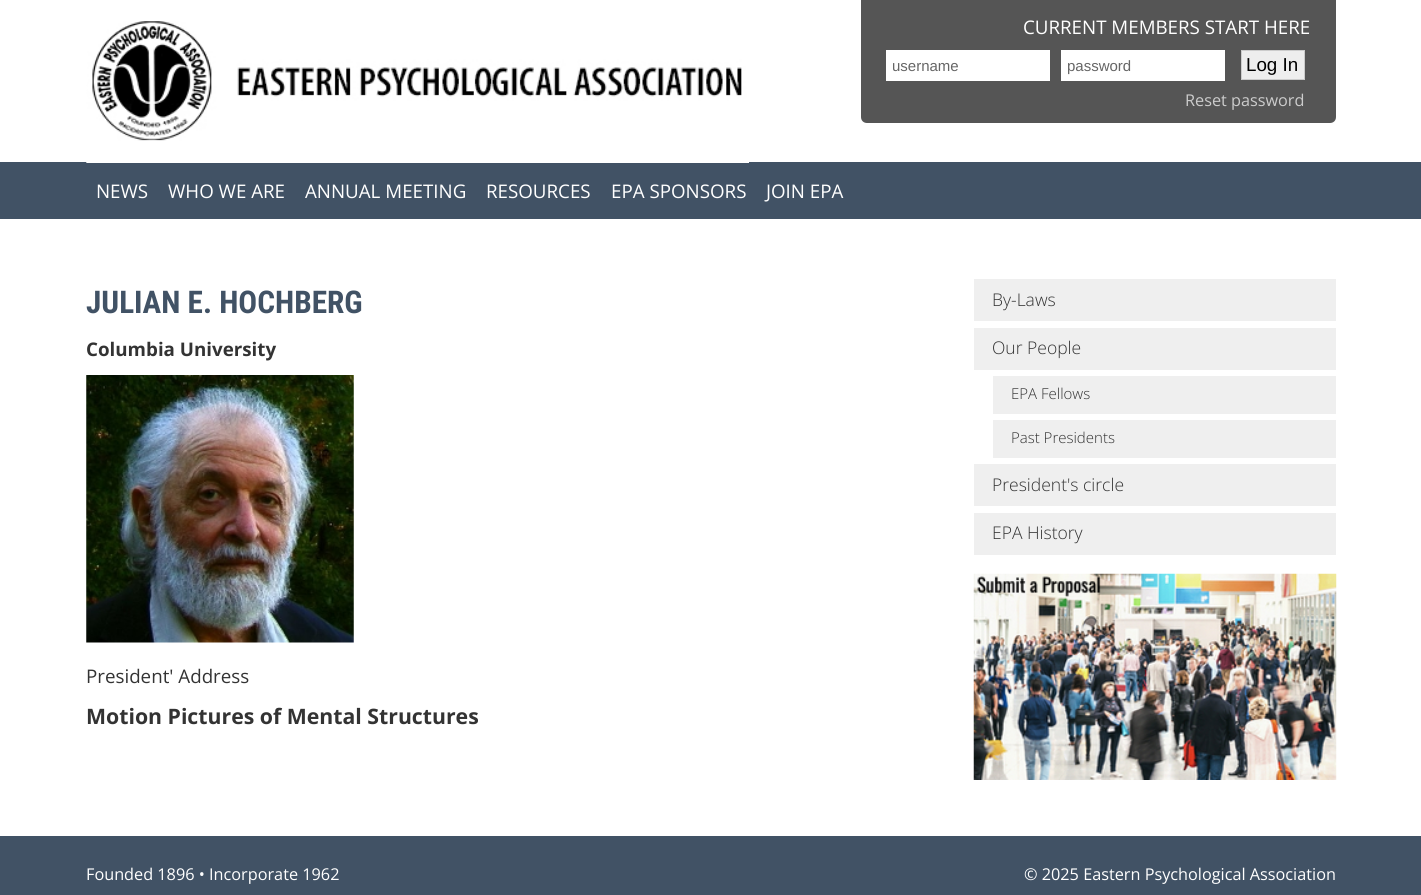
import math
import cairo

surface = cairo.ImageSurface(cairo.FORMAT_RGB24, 1421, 895)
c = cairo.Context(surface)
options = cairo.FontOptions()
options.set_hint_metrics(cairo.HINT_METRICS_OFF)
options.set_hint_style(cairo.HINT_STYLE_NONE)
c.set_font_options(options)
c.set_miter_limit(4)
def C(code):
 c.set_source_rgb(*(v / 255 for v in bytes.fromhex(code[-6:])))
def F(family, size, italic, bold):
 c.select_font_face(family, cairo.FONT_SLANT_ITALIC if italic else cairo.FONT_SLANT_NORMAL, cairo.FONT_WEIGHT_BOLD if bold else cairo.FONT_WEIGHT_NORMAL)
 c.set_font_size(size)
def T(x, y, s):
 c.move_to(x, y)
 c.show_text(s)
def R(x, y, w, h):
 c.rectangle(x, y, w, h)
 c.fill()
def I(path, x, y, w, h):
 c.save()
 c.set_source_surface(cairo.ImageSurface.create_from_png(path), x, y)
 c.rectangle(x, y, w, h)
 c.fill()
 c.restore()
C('ffffff')
c.paint()
C('415265')
R(0,162,1421,57)
I('1.png',86,21,663,142)
C('555555')
c.new_path()
c.move_to(861,0)
c.line_to(1336,0)
c.line_to(1336,117)
c.curve_to(1336,120.5,1333.5,123,1330,123)
c.line_to(867,123)
c.curve_to(863.5,123,861,120.5,861,117)
c.close_path()
c.fill()
F('Open Sans',18.75,0,0)
C('ffffff')
T(1023,34,'CURRENT MEMBERS START HERE')
R(886,50,164,31)
c.save()
c.rectangle(893,58,157,17)
c.clip()
F('Liberation Sans',15,0,0)
C('666666')
T(892,71,'username')
c.restore()
R(1061,50,164,31)
c.save()
c.rectangle(1068,58,157,17)
c.clip()
F('Liberation Sans',15,0,0)
C('666666')
T(1067,71,'password')
c.restore()
C('eeeeee')
c.rectangle(1241.5,50.5,63,29)
c.fill_preserve()
C('cccccc')
c.set_line_width(1)
c.stroke()
F('Liberation Sans',18.75,0,0)
C('000000')
T(1246,71,'Log In')
F('Open Sans',16.25,0,0)
C('cccccc')
T(1185,106,'Reset password')
F('Open Sans',18.75,0,0)
C('ffffff')
T(96,198,'NEWS')
T(168,198,'WHO WE ARE')
T(305,198,'ANNUAL MEETING')
T(486,198,'RESOURCES')
T(611,198,'EPA SPONSORS')
T(766,198,'JOIN EPA')
F('Roboto Condensed',31.25,0,1)
C('415265')
T(86,313,'JULIAN E. HOCHBERG')
F('Open Sans',18.75,0,1)
C('333333')
T(86,356,'Columbia University')
I('2.png',86,375,268,268)
F('Open Sans',18.75,0,0)
T(86,683,'President\' Address')
F('Open Sans',21.25,0,1)
T(86,724,'Motion Pictures of Mental Structures')
C('efefef')
R(974,279,362,42)
F('Open Sans Light',17.5,0,0)
C('333333')
T(992,306,'By-Laws')
C('efefef')
R(974,328,362,42)
C('333333')
T(992,354,'Our People')
C('efefef')
R(993,376,343,38)
F('Open Sans Light',15,0,0)
C('333333')
T(1011,399,'EPA Fellows')
C('efefef')
R(993,420,343,38)
C('333333')
T(1011,443,'Past Presidents')
C('efefef')
R(974,464,362,42)
F('Open Sans Light',17.5,0,0)
C('333333')
T(992,491,'President\'s circle')
C('efefef')
R(974,513,362,42)
C('333333')
T(992,539,'EPA History')
I('3.png',973,573,364,207)
C('415265')
R(0,836,1421,59)
F('Open Sans',16.25,0,0)
C('ffffff')
T(86,880,'Founded 1896 • Incorporate 1962')
T(1024,880,'© 2025 Eastern Psychological Association')
surface.write_to_png('o.png')
